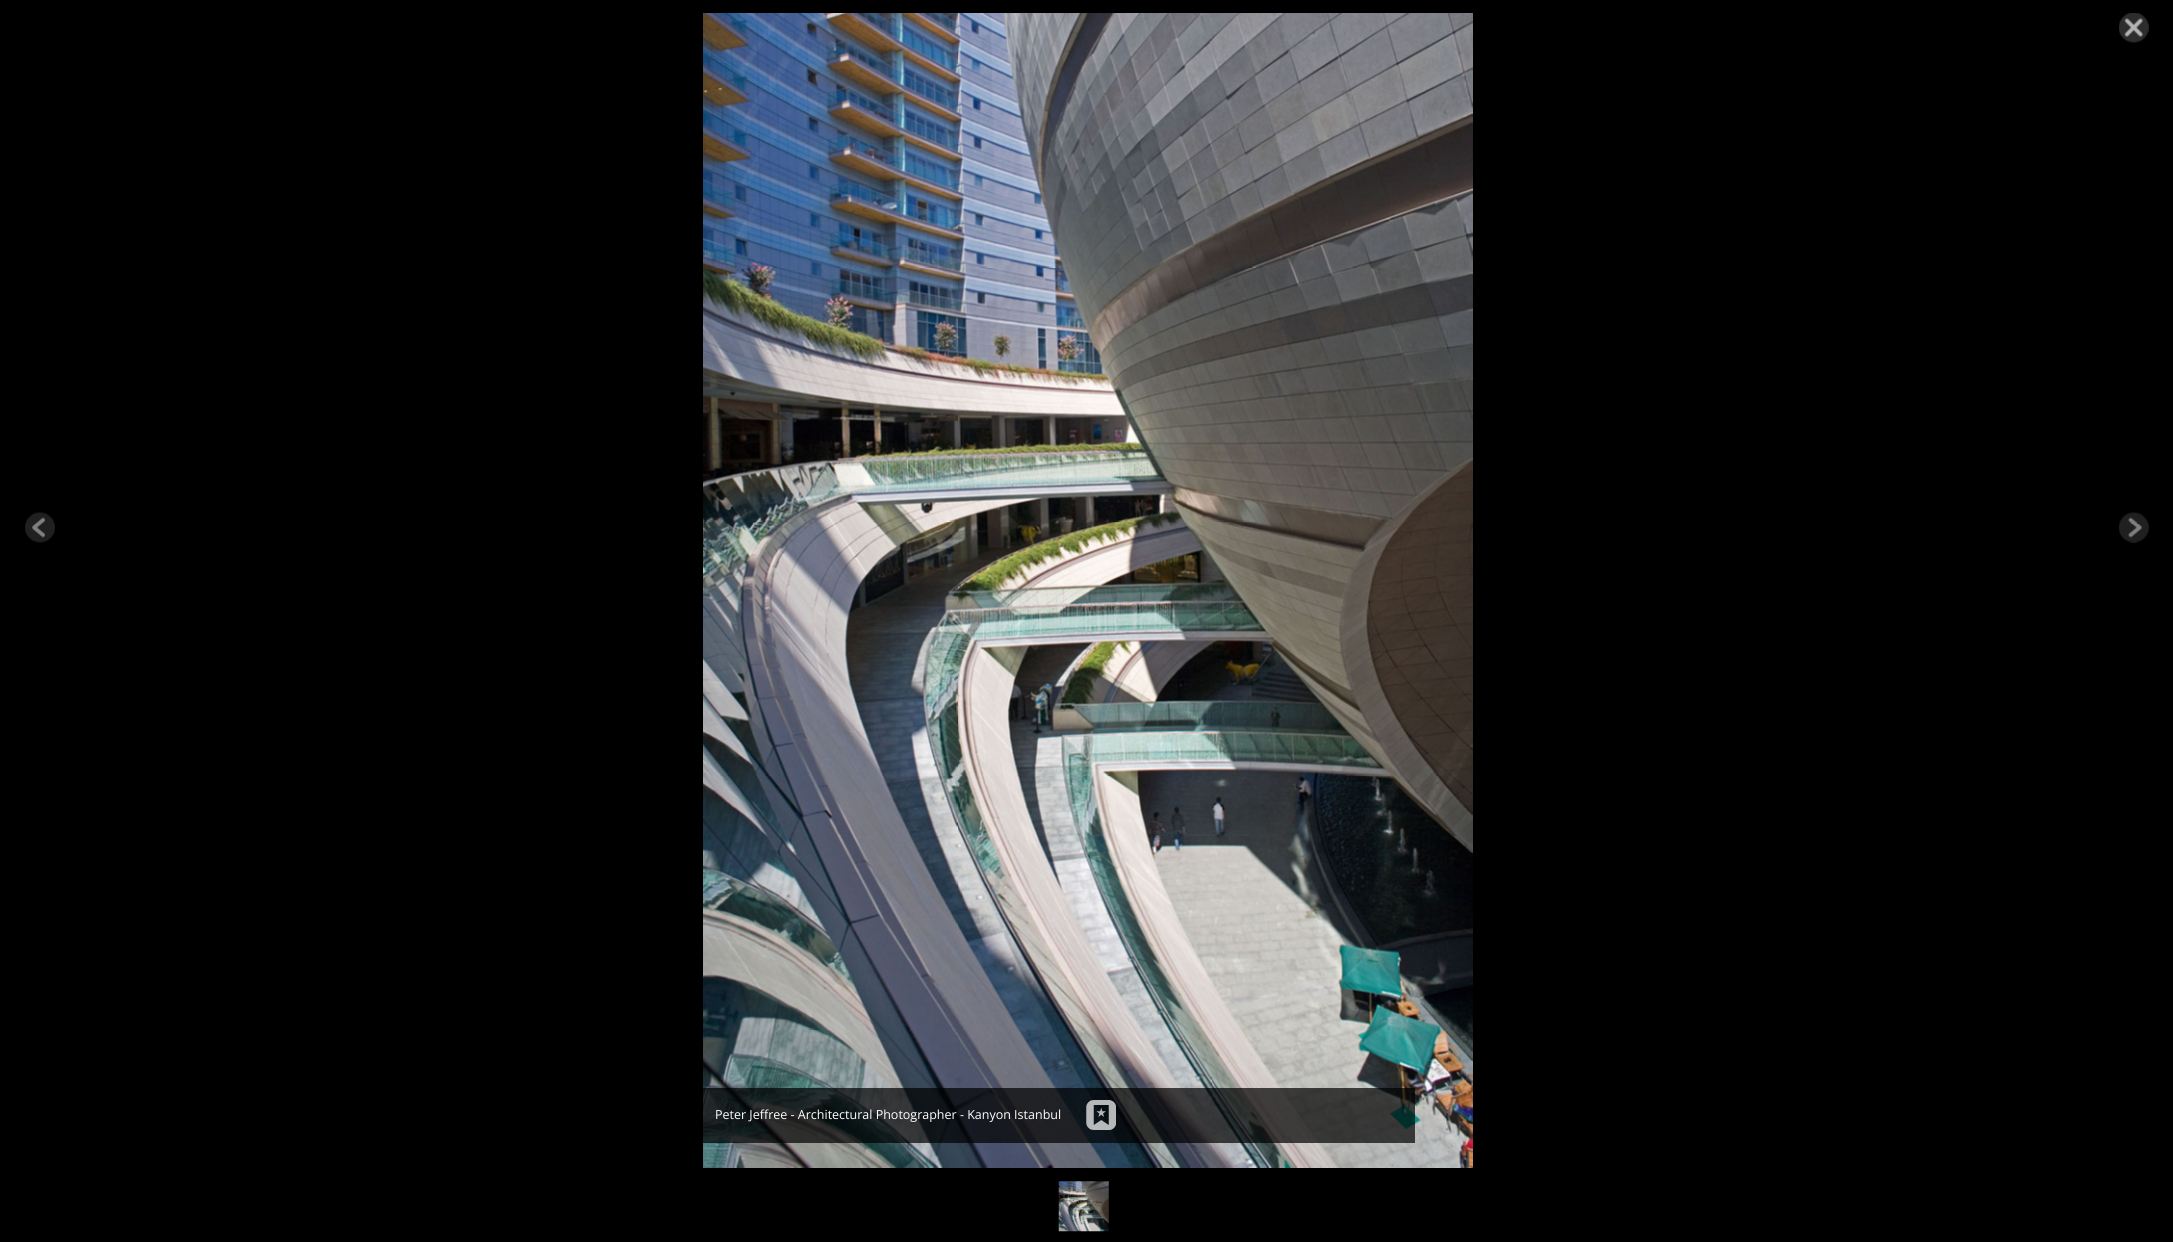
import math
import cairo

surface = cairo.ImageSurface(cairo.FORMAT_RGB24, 2173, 1242)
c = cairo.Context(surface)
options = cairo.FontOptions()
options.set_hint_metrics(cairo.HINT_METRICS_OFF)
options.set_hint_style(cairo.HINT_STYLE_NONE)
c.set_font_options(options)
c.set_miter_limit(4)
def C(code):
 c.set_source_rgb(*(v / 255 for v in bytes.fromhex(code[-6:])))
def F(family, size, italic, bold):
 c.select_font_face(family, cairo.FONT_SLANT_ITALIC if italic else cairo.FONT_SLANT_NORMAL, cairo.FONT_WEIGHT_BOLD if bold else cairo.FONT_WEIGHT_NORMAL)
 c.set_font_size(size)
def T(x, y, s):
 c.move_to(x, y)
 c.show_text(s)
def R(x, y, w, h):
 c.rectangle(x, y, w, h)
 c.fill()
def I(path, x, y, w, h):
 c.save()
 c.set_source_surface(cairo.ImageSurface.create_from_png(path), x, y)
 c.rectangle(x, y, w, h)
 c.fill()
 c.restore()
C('000000')
c.paint()
I('1.png',2119,13,30,30)
I('2.png',25,512,30,31)
I('3.png',2119,512,30,31)
I('4.png',703,13,770,1155)
c.set_source_rgba(0,0,0,0.7)
R(703,1088,712,55)
F('Open Sans',12.5,0,0)
C('ffffff')
T(715,1119,'Peter Jeffree - Architectural Photographer - Kanyon Istanbul')
I('5.png',1086,1100,30,30)
I('6.png',1058,1181,51,51)
surface.write_to_png('o.png')
